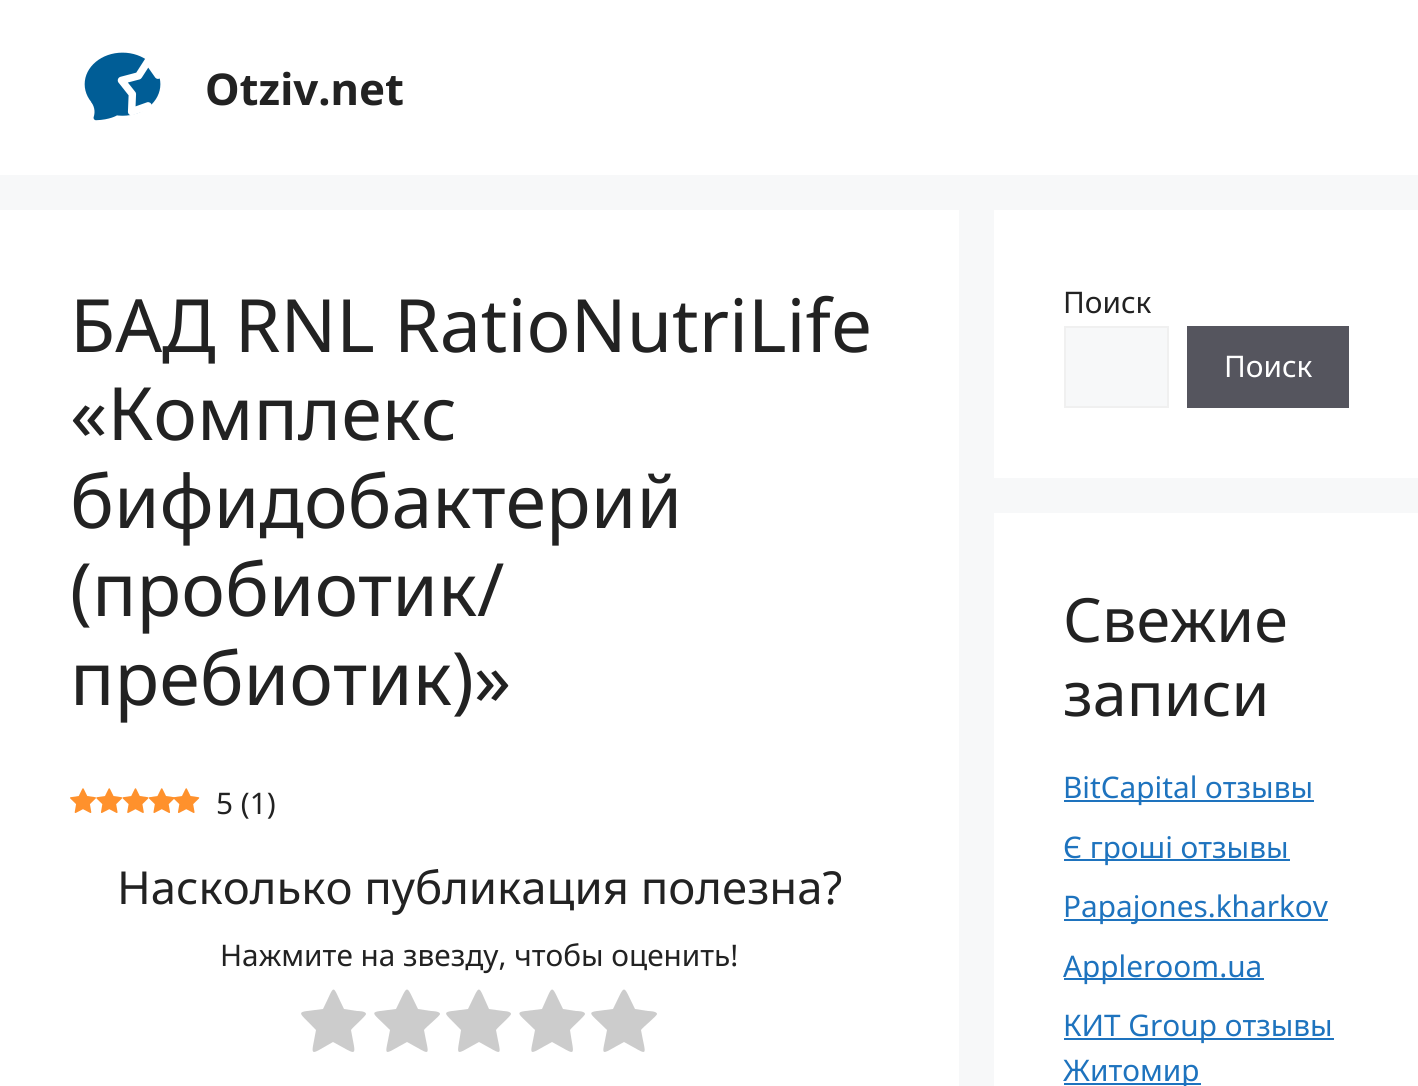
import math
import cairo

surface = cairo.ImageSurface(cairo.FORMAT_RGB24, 1418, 1086)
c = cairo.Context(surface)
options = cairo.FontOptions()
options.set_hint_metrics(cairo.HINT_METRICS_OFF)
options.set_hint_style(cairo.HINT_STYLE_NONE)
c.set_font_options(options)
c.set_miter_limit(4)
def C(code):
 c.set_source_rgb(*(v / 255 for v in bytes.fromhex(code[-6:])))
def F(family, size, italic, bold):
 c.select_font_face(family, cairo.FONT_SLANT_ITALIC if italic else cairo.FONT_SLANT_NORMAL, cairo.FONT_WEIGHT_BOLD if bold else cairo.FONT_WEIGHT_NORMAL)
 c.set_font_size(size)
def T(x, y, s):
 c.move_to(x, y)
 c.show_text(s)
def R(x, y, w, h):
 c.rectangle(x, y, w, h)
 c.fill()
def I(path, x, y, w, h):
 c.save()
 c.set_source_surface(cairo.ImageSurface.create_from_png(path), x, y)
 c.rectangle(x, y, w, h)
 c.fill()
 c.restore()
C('f7f8f9')
c.paint()
C('ffffff')
R(0,0,1418,175)
I('1.png',84,52,77,69)
F('Noto Sans',43.75,0,1)
C('222222')
T(205,105,'Otziv.net')
C('ffffff')
R(0,210,959,876)
F('Noto Sans',73.5,0,0)
C('222222')
T(70,352,'БАД RNL RatioNutriLife')
T(70,440,'«Комплекс')
T(70,528,'бифидобактерий')
T(70,616,'(пробиотик/')
T(70,705,'пребиотик)»')
I('2.png',70,788,26,25)
I('3.png',96,788,27,25)
I('4.png',122,788,27,25)
I('5.png',148,788,27,25)
I('6.png',173,788,27,25)
F('Noto Sans',29.75,0,0)
T(216,814,'5 (1)')
F('Noto Sans',45.5,0,0)
T(117,904,'Насколько публикация полезна?')
F('Noto Sans',29.75,0,0)
T(220,966,'Нажмите на звезду, чтобы оценить!')
C('cccccc')
c.new_path()
c.move_to(366,1014)
c.curve_to(366,1016,353,1027,351,1030)
c.curve_to(356,1058,359,1056,333,1042)
c.curve_to(308,1056,311,1058,316,1030)
c.curve_to(296,1009,294,1013,323,1009)
c.curve_to(336,983,331,983,344,1009)
c.line_to(357,1011)
c.curve_to(358,1011,366,1011,366,1014)
c.close_path()
c.fill()
c.new_path()
c.move_to(440,1014)
c.curve_to(440,1016,426,1027,424,1030)
c.curve_to(429,1058,433,1056,407,1042)
c.curve_to(381,1056,385,1058,390,1030)
c.curve_to(369,1009,367,1013,396,1009)
c.curve_to(409,983,405,983,418,1009)
c.line_to(431,1011)
c.curve_to(431,1011,440,1011,440,1014)
c.close_path()
c.fill()
c.new_path()
c.move_to(511,1014)
c.curve_to(511,1016,498,1027,496,1030)
c.curve_to(501,1058,505,1056,479,1042)
c.curve_to(453,1056,457,1058,461,1030)
c.curve_to(441,1009,439,1013,468,1009)
c.curve_to(481,983,477,983,489,1009)
c.line_to(503,1011)
c.curve_to(503,1011,511,1011,511,1014)
c.close_path()
c.fill()
c.new_path()
c.move_to(585,1014)
c.curve_to(585,1016,572,1027,570,1030)
c.curve_to(574,1058,578,1056,552,1042)
c.curve_to(526,1056,530,1058,535,1030)
c.curve_to(514,1009,512,1013,542,1009)
c.curve_to(554,983,550,983,563,1009)
c.line_to(576,1011)
c.curve_to(577,1011,585,1011,585,1014)
c.close_path()
c.fill()
c.new_path()
c.move_to(657,1014)
c.curve_to(657,1016,643,1027,641,1030)
c.curve_to(646,1058,650,1056,624,1042)
c.curve_to(598,1056,602,1058,607,1030)
c.curve_to(586,1009,584,1013,613,1009)
c.curve_to(626,983,622,983,635,1009)
c.line_to(648,1011)
c.curve_to(648,1011,657,1011,657,1014)
c.close_path()
c.fill()
C('ffffff')
R(994,210,424,268)
C('222222')
T(1063,313,'Поиск')
C('f7f8f9')
c.rectangle(1065,327,103,80)
c.fill_preserve()
C('f0f0f0')
c.stroke()
C('55555e')
R(1187,326,162,82)
C('ffffff')
T(1224,377,'Поиск')
R(994,513,424,573)
F('Noto Sans',61,0,0)
C('222222')
T(1063,642,'Свежие')
T(1063,716,'записи')
C('1e73be')
R(1064,800,250,2)
F('Noto Sans',29.75,0,0)
T(1063,798,'BitCapital отзывы')
R(1064,859,226,2)
T(1063,858,'Є гроші отзывы')
R(1064,919,264,2)
T(1063,917,'Papajones.kharkov')
R(1064,978,200,2)
T(1063,977,'Appleroom.ua')
R(1064,1038,270,2)
T(1063,1036,'КИТ Group отзывы')
R(1064,1083,137,2)
T(1063,1081,'Житомир')
surface.write_to_png('o.png')
